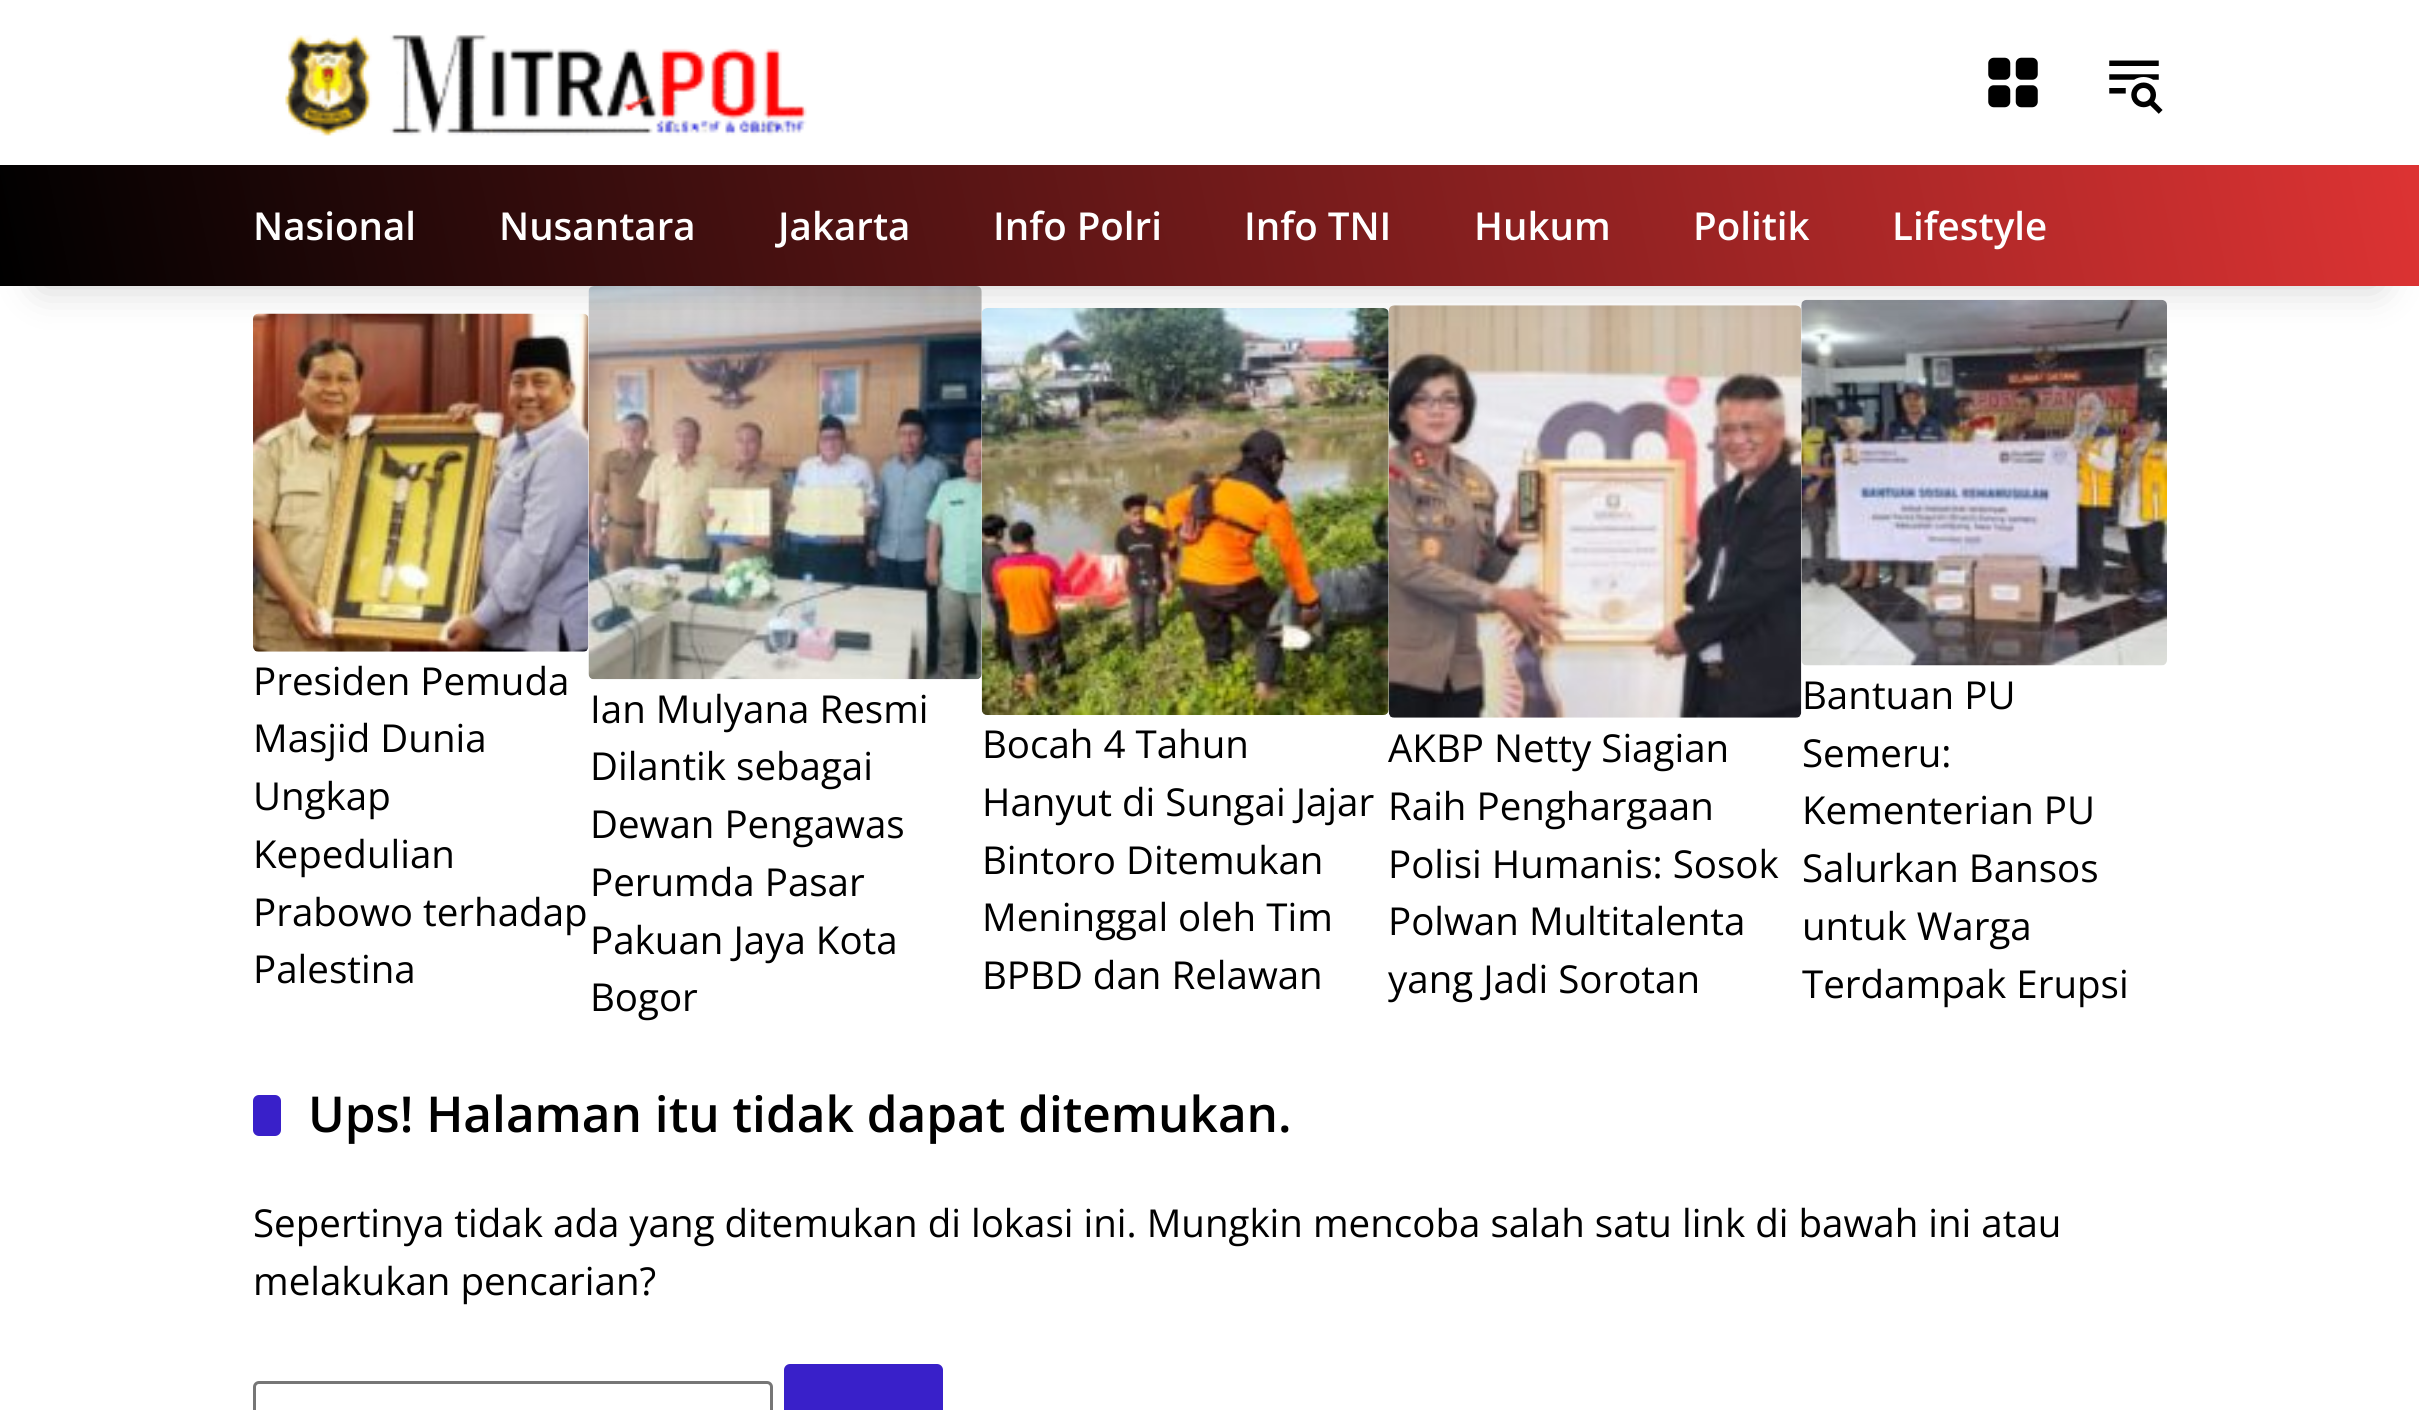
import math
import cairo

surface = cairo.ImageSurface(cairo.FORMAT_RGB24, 2419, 1410)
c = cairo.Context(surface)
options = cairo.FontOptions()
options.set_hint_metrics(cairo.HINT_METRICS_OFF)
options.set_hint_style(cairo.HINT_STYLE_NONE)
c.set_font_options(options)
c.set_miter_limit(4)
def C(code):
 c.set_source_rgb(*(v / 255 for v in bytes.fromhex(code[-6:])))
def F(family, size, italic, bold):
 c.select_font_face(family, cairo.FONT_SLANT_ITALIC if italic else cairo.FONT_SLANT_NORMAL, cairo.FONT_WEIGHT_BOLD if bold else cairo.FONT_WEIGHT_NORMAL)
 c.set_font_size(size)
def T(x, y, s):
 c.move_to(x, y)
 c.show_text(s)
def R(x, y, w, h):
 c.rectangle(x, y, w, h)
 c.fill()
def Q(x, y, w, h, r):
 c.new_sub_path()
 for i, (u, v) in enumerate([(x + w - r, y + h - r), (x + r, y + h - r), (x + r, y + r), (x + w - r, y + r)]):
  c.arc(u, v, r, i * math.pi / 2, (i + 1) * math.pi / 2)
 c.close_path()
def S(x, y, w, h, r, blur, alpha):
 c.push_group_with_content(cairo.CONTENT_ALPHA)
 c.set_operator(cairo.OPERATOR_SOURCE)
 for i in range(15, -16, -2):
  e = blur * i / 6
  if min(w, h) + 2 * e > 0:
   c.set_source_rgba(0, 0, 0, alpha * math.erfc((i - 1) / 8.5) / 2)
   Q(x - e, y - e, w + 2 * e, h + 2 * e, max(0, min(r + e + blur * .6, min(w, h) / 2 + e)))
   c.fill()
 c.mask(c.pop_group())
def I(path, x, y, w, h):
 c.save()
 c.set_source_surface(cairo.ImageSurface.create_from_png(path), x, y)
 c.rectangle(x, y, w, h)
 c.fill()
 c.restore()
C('ffffff')
c.paint()
I('1.png',285,34,522,102)
I('2.png',1988,57,50,51)
I('3.png',2109,60,54,54)
I('4.png',253,313,336,339)
I('5.png',588,286,394,394)
I('6.png',981,308,408,407)
I('7.png',1388,305,414,413)
I('8.png',1801,299,366,367)
C('000000')
S(41,248,2338,38,0,20.5,.2)
gradient = cairo.LinearGradient(40,474,2380,-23)
gradient.add_color_stop_rgba(0,0,0,0,1)
gradient.add_color_stop_rgba(1,0.867,0.2,0.2,1)
c.set_source(gradient)
R(0,165,2419,121)
F('Open Sans SemiBold',38.5,0,0)
C('ffffff')
T(253,240,'Nasional')
T(499,240,'Nusantara')
T(778,240,'Jakarta')
T(993,240,'Info Polri')
T(1244,240,'Info TNI')
T(1474,240,'Hukum')
T(1693,240,'Politik')
T(1892,240,'Lifestyle')
F('Open Sans',38.5,0,0)
C('000000')
T(253,695,'Presiden Pemuda')
T(253,752,'Masjid Dunia')
T(253,810,'Ungkap')
T(253,868,'Kepedulian')
T(253,926,'Prabowo terhadap')
T(253,983,'Palestina')
T(590,723,'Ian Mulyana Resmi')
T(590,780,'Dilantik sebagai')
T(590,838,'Dewan Pengawas')
T(590,896,'Perumda Pasar')
T(590,954,'Pakuan Jaya Kota')
T(590,1011,'Bogor')
T(982,758,'Bocah 4 Tahun')
T(982,816,'Hanyut di Sungai Jajar')
T(982,874,'Bintoro Ditemukan')
T(982,931,'Meninggal oleh Tim')
T(982,989,'BPBD dan Relawan')
T(1388,762,'AKBP Netty Siagian')
T(1388,820,'Raih Penghargaan')
T(1388,878,'Polisi Humanis: Sosok')
T(1388,935,'Polwan Multitalenta')
T(1388,993,'yang Jadi Sorotan')
T(1802,709,'Bantuan PU')
T(1802,767,'Semeru:')
T(1802,824,'Kementerian PU')
T(1802,882,'Salurkan Bansos')
T(1802,940,'untuk Warga')
T(1802,998,'Terdampak Erupsi')
C('3920c9')
Q(253,1095,28,41,6)
c.fill()
F('Open Sans SemiBold',49.5,0,0)
C('000000')
T(308,1132,'Ups! Halaman itu tidak dapat ditemukan.')
F('Open Sans',38.5,0,0)
T(253,1237,'Sepertinya tidak ada yang ditemukan di lokasi ini. Mungkin mencoba salah satu link di bawah ini atau')
T(253,1295,'melakukan pencarian?')
Q(254.5,1382.5,517,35,4.5)
C('767676')
c.set_line_width(3)
c.stroke()
C('3920c9')
Q(784,1364,159,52,6)
c.fill()
surface.write_to_png('o.png')
